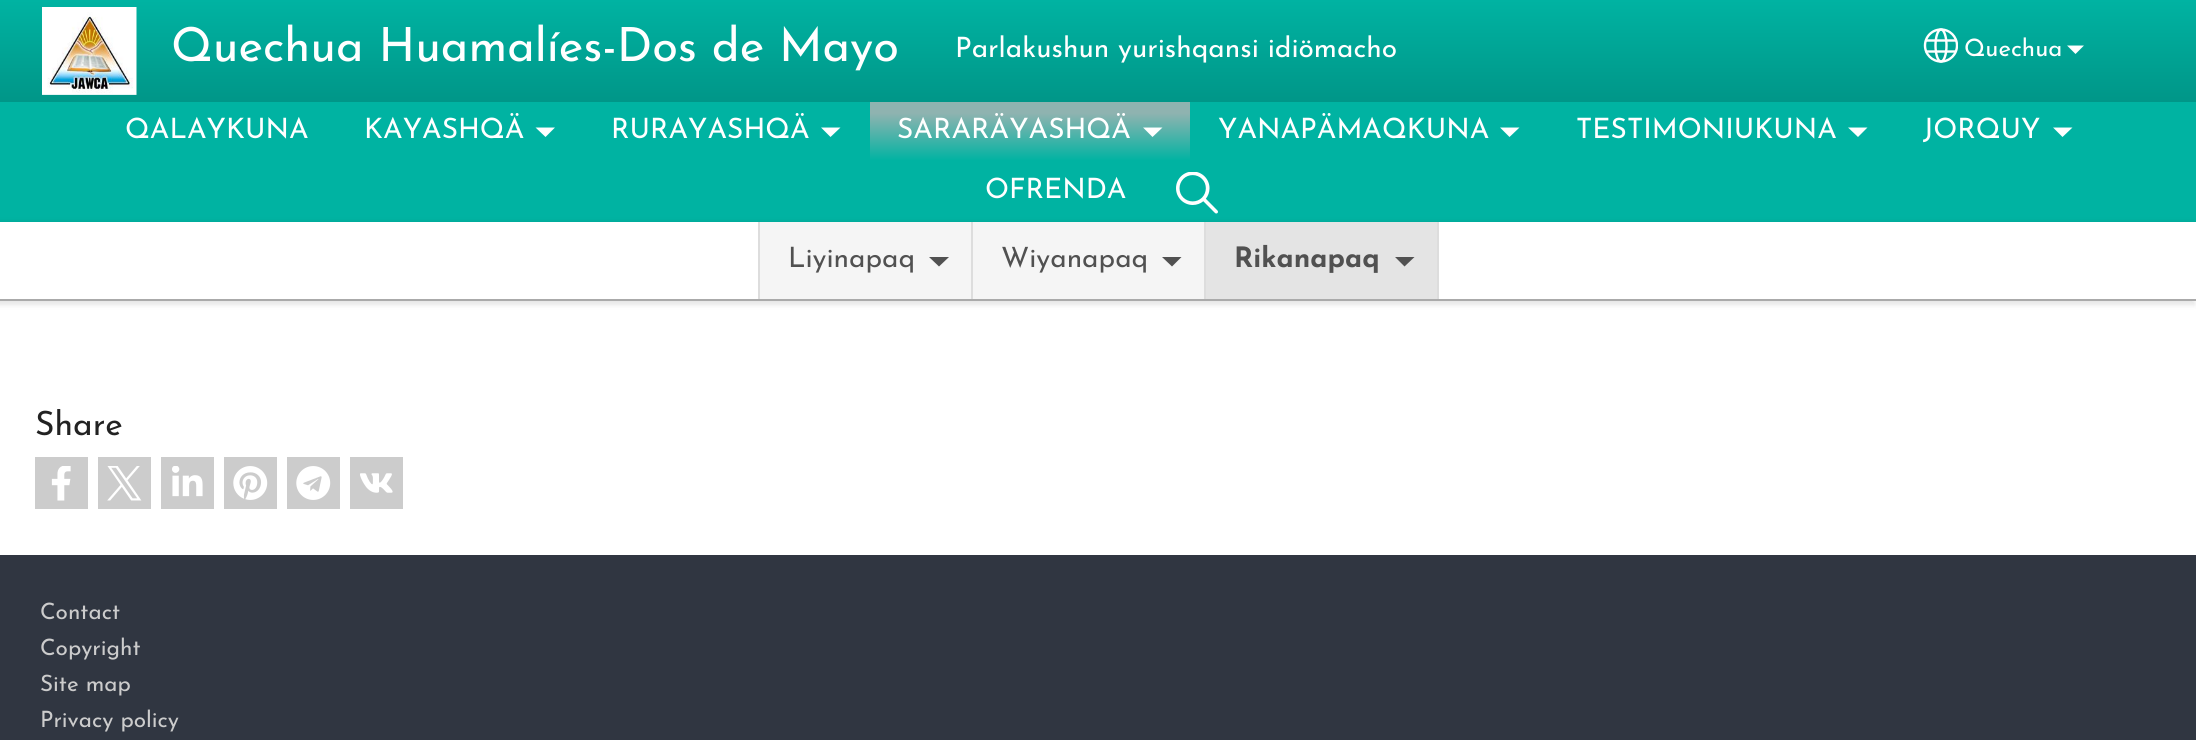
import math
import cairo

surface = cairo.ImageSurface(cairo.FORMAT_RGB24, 2196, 740)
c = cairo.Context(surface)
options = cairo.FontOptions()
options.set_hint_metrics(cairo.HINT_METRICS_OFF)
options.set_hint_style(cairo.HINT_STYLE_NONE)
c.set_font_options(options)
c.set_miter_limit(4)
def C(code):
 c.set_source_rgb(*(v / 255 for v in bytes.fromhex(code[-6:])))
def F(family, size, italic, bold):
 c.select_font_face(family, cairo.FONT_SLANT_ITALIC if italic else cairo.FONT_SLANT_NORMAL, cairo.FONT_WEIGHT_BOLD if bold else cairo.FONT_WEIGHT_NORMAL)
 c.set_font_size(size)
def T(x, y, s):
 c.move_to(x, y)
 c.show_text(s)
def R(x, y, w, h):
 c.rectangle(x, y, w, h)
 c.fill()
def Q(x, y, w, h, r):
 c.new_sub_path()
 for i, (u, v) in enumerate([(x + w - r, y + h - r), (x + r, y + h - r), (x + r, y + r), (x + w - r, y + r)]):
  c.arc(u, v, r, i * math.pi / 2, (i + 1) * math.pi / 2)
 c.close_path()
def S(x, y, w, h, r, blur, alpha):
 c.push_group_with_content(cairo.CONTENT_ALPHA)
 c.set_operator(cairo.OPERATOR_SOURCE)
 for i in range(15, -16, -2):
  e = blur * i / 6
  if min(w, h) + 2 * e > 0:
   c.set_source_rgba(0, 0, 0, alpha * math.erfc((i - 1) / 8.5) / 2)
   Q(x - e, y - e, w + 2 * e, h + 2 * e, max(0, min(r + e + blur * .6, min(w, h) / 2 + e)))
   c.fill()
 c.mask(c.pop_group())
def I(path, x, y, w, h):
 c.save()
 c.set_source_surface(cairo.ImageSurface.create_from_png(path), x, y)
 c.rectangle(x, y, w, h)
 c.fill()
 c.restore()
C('ffffff')
c.paint()
gradient = cairo.LinearGradient(1098,0,1098,102)
gradient.add_color_stop_rgba(0,0,0.702,0.635,1)
gradient.add_color_stop_rgba(1,0,0.588,0.533,1)
c.set_source(gradient)
R(0,0,2196,102)
I('1.png',42,7,95,88)
F('Josefin Sans',47,0,0)
C('ffffff')
T(171,61,'Quechua Huamalíes-Dos de Mayo')
F('Josefin Sans',28,0,0)
T(955,57,'Parlakushun yurishqansi idiömacho')
c.save()
c.rectangle(1923,18,35,45)
c.clip()
c.arc(1941,45.5,16,0,2 * math.pi)
c.set_line_width(2.4)
c.stroke()
c.restore()
c.new_path()
c.move_to(1941,29.5)
c.curve_to(1944,29.5,1946.5,36.5,1946.5,45.5)
c.curve_to(1946.5,54.5,1944,61.5,1941,61.5)
c.curve_to(1938,61.5,1935.5,54.5,1935.5,45.5)
c.curve_to(1935.5,36.5,1938,29.5,1941,29.5)
c.close_path()
c.set_line_width(2.4)
c.stroke()
c.new_path()
c.move_to(1925.5,51.5)
c.line_to(1956,51.5)
c.move_to(1925.5,40.5)
c.line_to(1956,40.5)
c.stroke()
F('Josefin Sans',24,0,0)
T(1964,56,'Quechua')
c.new_path()
c.move_to(2067,45.5)
c.line_to(2084,45.5)
c.line_to(2075.5,54)
c.close_path()
c.fill()
C('00b3a2')
R(0,102,2196,120)
F('Josefin Sans',28,0,0)
C('ffffff')
T(364,138,'KAYASHQÄ')
c.new_path()
c.move_to(535.5,127.5)
c.line_to(555,127.5)
c.line_to(545.5,137)
c.close_path()
c.fill()
T(611,138,'RURAYASHQÄ')
c.new_path()
c.move_to(821,127.5)
c.line_to(840.5,127.5)
c.line_to(830.5,137)
c.close_path()
c.fill()
gradient = cairo.LinearGradient(1030,101,1030,161)
gradient.add_color_stop_rgba(.2,0.561,0.702,0.69,1)
gradient.add_color_stop_rgba(1,0,0.702,0.635,1)
c.set_source(gradient)
R(870,102,320,58)
C('ffffff')
T(897,138,'SARARÄYASHQÄ')
c.new_path()
c.move_to(1143,127.5)
c.line_to(1162.5,127.5)
c.line_to(1152.5,137)
c.close_path()
c.fill()
I('2.png',1176,172,42,42)
C('000000')
S(-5,222,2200,83,0,2.5,.1)
C('ffffff')
R(0,222,2196,77)
C('aaaaaa')
R(0,299,2196,2)
C('f5f5f5')
R(760,222,211,77)
C('dddddd')
R(758,222,2,77)
C('515151')
T(788,267,'Liyinapaq')
c.new_path()
c.move_to(929,257)
c.line_to(949,257)
c.line_to(939,266.5)
c.close_path()
c.fill()
C('f5f5f5')
R(973,222,231,77)
C('dddddd')
R(971,222,2,77)
C('515151')
T(1001,267,'Wiyanapaq')
c.new_path()
c.move_to(1162,257)
c.line_to(1181.5,257)
c.line_to(1172,266.5)
c.close_path()
c.fill()
C('e4e4e4')
R(1206,222,231,77)
C('dddddd')
R(1437,222,2,77)
R(1204,222,2,77)
F('Josefin Sans',28,0,1)
C('515151')
T(1234,267,'Rikanapaq')
c.new_path()
c.move_to(1395,257)
c.line_to(1414.5,257)
c.line_to(1404.5,266.5)
c.close_path()
c.fill()
F('Josefin Sans',28,0,0)
C('ffffff')
T(125,138,'QALAYKUNA')
T(1218,138,'YANAPÄMAQKUNA')
c.new_path()
c.move_to(1500,127.5)
c.line_to(1519.5,127.5)
c.line_to(1509.5,137)
c.close_path()
c.fill()
T(1576,138,'TESTIMONIUKUNA')
c.new_path()
c.move_to(1848,127.5)
c.line_to(1867.5,127.5)
c.line_to(1858,137)
c.close_path()
c.fill()
T(1923,138,'JORQUY')
c.new_path()
c.move_to(2053,127.5)
c.line_to(2072.5,127.5)
c.line_to(2062.5,137)
c.close_path()
c.fill()
T(985,198,'OFRENDA')
F('Josefin Sans',33.5,0,0)
C('222222')
T(35,435,'Share')
C('cccccc')
R(35,457,53,52)
I('3.png',51,466,20,35)
R(98,457,53,52)
I('4.png',107,466,35,35)
R(161,457,53,52)
I('5.png',172,466,31,31)
R(224,457,53,52)
I('6.png',233,466,35,34)
R(287,457,53,52)
I('7.png',296,466,35,34)
R(350,457,53,52)
I('8.png',360,473,33,20)
C('303641')
R(0,555,2196,185)
F('Josefin Sans',22.5,0,0)
C('cccccc')
T(40,619,'Contact')
T(40,655,'Copyright')
T(40,691,'Site map')
T(40,727,'Privacy policy')
surface.write_to_png('o.png')
